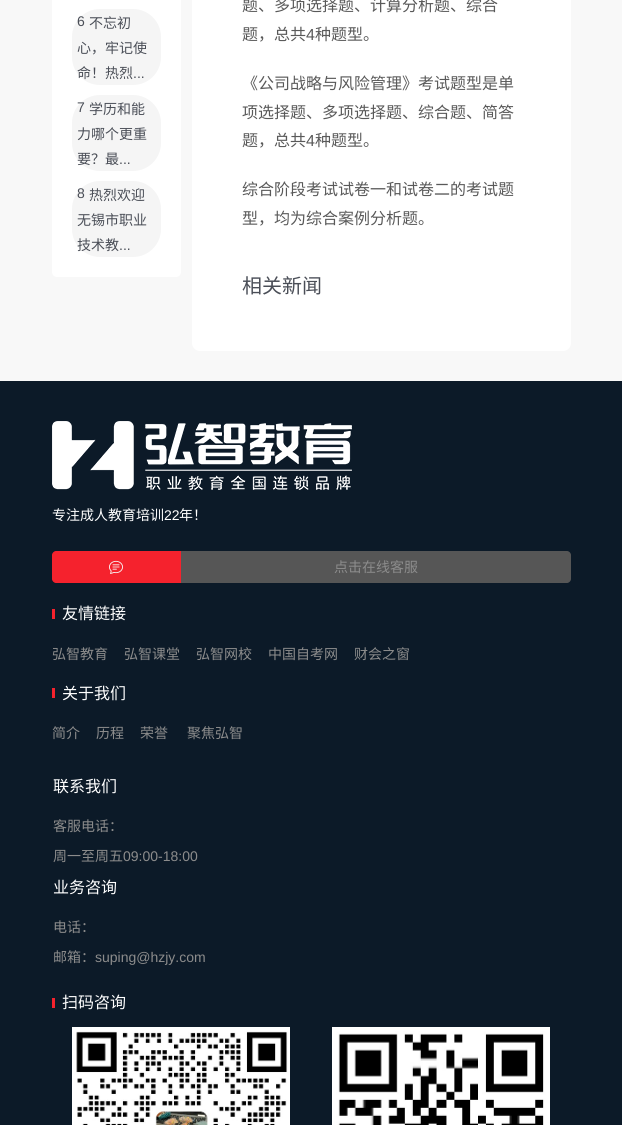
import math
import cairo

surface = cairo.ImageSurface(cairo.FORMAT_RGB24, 622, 1125)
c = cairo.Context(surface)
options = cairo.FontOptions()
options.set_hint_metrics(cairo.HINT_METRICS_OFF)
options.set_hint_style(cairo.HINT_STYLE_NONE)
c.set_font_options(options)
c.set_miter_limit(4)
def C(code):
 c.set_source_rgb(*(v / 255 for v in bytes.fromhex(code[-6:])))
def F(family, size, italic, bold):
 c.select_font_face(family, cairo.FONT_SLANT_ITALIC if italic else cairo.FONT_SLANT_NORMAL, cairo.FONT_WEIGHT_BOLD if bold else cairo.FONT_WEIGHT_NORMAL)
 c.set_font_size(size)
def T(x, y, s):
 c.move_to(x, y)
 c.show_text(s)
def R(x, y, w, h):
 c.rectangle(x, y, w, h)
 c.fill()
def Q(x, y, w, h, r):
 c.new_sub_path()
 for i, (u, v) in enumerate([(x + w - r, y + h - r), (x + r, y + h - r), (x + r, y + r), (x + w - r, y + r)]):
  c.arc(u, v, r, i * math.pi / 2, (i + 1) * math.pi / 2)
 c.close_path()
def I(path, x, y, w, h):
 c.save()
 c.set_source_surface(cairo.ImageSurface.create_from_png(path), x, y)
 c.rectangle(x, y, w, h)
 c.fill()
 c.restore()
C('f8f8f8')
c.paint()
C('ffffff')
Q(52,-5,129,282,5)
c.fill()
C('f5f5f5')
Q(72,9,89,76,28)
c.fill()
F('Liberation Sans',14,0,0)
C('4a4e57')
T(77,26,'6')
F('Noto Sans CJK SC',14,0,0)
T(89,28,'不忘初')
T(77,53,'心，牢记使')
T(77,78,'命！热烈')
F('Liberation Sans',14,0,0)
T(133,78,'...')
C('f5f5f5')
Q(72,95,89,76,28)
c.fill()
C('4a4e57')
T(77,112,'7')
F('Noto Sans CJK SC',14,0,0)
T(89,114,'学历和能')
T(77,139,'力哪个更重')
T(77,164,'要？最')
F('Liberation Sans',14,0,0)
T(119,164,'...')
C('f5f5f5')
Q(72,181,89,76,28)
c.fill()
C('4a4e57')
T(77,198,'8')
F('Noto Sans CJK SC',14,0,0)
T(89,200,'热烈欢迎')
T(77,225,'无锡市职业')
T(77,250,'技术教')
F('Liberation Sans',14,0,0)
T(119,250,'...')
C('ffffff')
Q(192,-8,379,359,8)
c.fill()
F('Noto Sans CJK SC',16,0,0)
C('595959')
T(242,11,'题、多项选择题、计算分析题、综合')
T(242,40,'题，总共')
F('Liberation Sans',16,0,0)
T(306,40,'4')
F('Noto Sans CJK SC',16,0,0)
T(315,40,'种题型。')
T(242,89,'《公司战略与风险管理》考试题型是单')
T(242,118,'项选择题、多项选择题、综合题、简答')
T(242,146,'题，总共')
F('Liberation Sans',16,0,0)
T(306,146,'4')
F('Noto Sans CJK SC',16,0,0)
T(315,146,'种题型。')
T(242,195,'综合阶段考试试卷一和试卷二的考试题')
T(242,224,'型，均为综合案例分析题。')
F('Noto Sans CJK SC',20,0,0)
C('4a4e57')
T(242,293,'相关新闻')
C('0c1a28')
R(0,381,622,744)
I('1.png',52,421,300,69)
F('Noto Sans CJK SC',14,0,0)
C('ffffff')
T(52,520,'专注成人教育培训')
F('Liberation Sans',14,0,0)
T(164,520,'22')
F('Noto Sans CJK SC',14,0,0)
T(179,520,'年！')
C('f5222d')
c.new_path()
c.move_to(56,551)
c.line_to(181,551)
c.line_to(181,583)
c.line_to(56,583)
c.curve_to(54,583,52,581,52,579)
c.line_to(52,555)
c.curve_to(52,553,54,551,56,551)
c.close_path()
c.fill()
I('2.png',109,560,14,14)
C('565656')
c.new_path()
c.move_to(181,551)
c.line_to(567,551)
c.curve_to(569,551,571,553,571,555)
c.line_to(571,579)
c.curve_to(571,581,569,583,567,583)
c.line_to(181,583)
c.close_path()
c.fill()
C('8c8c8c')
T(334,572,'点击在线客服')
C('f5222d')
R(52,609,3,10)
F('Noto Sans CJK SC',16,0,0)
C('ffffff')
T(62,619,'友情链接')
F('Noto Sans CJK SC',14,0,0)
C('8c8c8c')
T(52,659,'弘智教育')
T(124,659,'弘智课堂')
T(196,659,'弘智网校')
T(268,659,'中国自考网')
T(354,659,'财会之窗')
C('f5222d')
R(52,688,3,10)
F('Noto Sans CJK SC',16,0,0)
C('ffffff')
T(62,699,'关于我们')
F('Noto Sans CJK SC',14,0,0)
C('8c8c8c')
T(52,738,'简介')
T(96,738,'历程')
T(140,738,'荣誉')
T(187,738,'聚焦弘智')
F('Noto Sans CJK SC',16,0,0)
C('ffffff')
T(53,792,'联系我们')
F('Noto Sans CJK SC',14,0,0)
C('8c8c8c')
T(53,831,'客服电话：')
T(53,861,'周一至周五')
F('Liberation Sans',14,0,0)
T(123,861,'09:00-18:00')
F('Noto Sans CJK SC',16,0,0)
C('ffffff')
T(53,893,'业务咨询')
F('Noto Sans CJK SC',14,0,0)
C('8c8c8c')
T(53,932,'电话：')
T(53,962,'邮箱：')
F('Liberation Sans',14,0,0)
T(95,962,'suping@hzjy.com')
C('f5222d')
R(52,998,3,10)
F('Noto Sans CJK SC',16,0,0)
C('ffffff')
T(62,1008,'扫码咨询')
I('3.png',72,1027,218,98)
I('4.png',332,1027,218,98)
surface.write_to_png('o.png')
